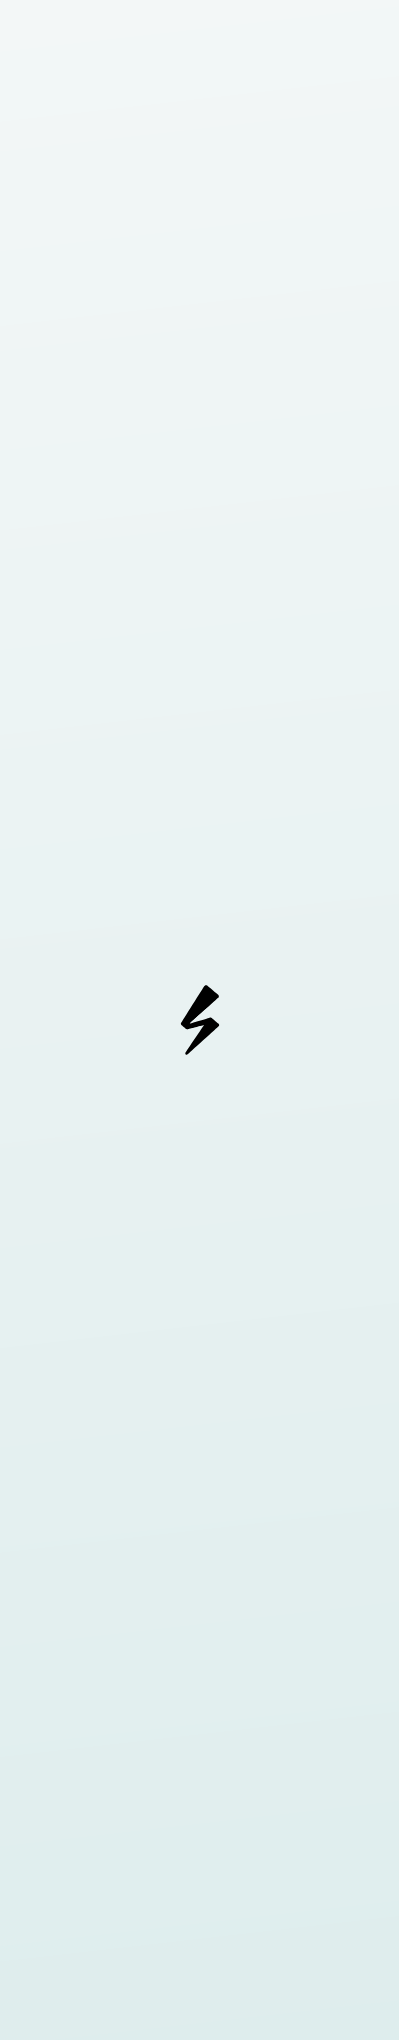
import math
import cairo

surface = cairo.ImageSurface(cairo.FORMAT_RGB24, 399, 2040)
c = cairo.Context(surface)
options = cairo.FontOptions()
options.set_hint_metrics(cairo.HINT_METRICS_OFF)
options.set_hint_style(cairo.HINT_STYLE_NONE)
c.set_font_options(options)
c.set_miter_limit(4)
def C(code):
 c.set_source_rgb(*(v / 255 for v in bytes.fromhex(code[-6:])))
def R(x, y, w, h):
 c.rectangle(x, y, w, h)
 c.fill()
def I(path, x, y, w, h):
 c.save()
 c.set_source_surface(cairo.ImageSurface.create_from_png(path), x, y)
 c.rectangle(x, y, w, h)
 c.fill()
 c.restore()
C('ffffff')
c.paint()
gradient = cairo.LinearGradient(82,-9,317,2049)
gradient.add_color_stop_rgba(0,0.953,0.969,0.969,1)
gradient.add_color_stop_rgba(1,0.871,0.929,0.929,1)
c.set_source(gradient)
R(0,0,399,2040)
I('1.png',180,985,40,70)
surface.write_to_png('o.png')
